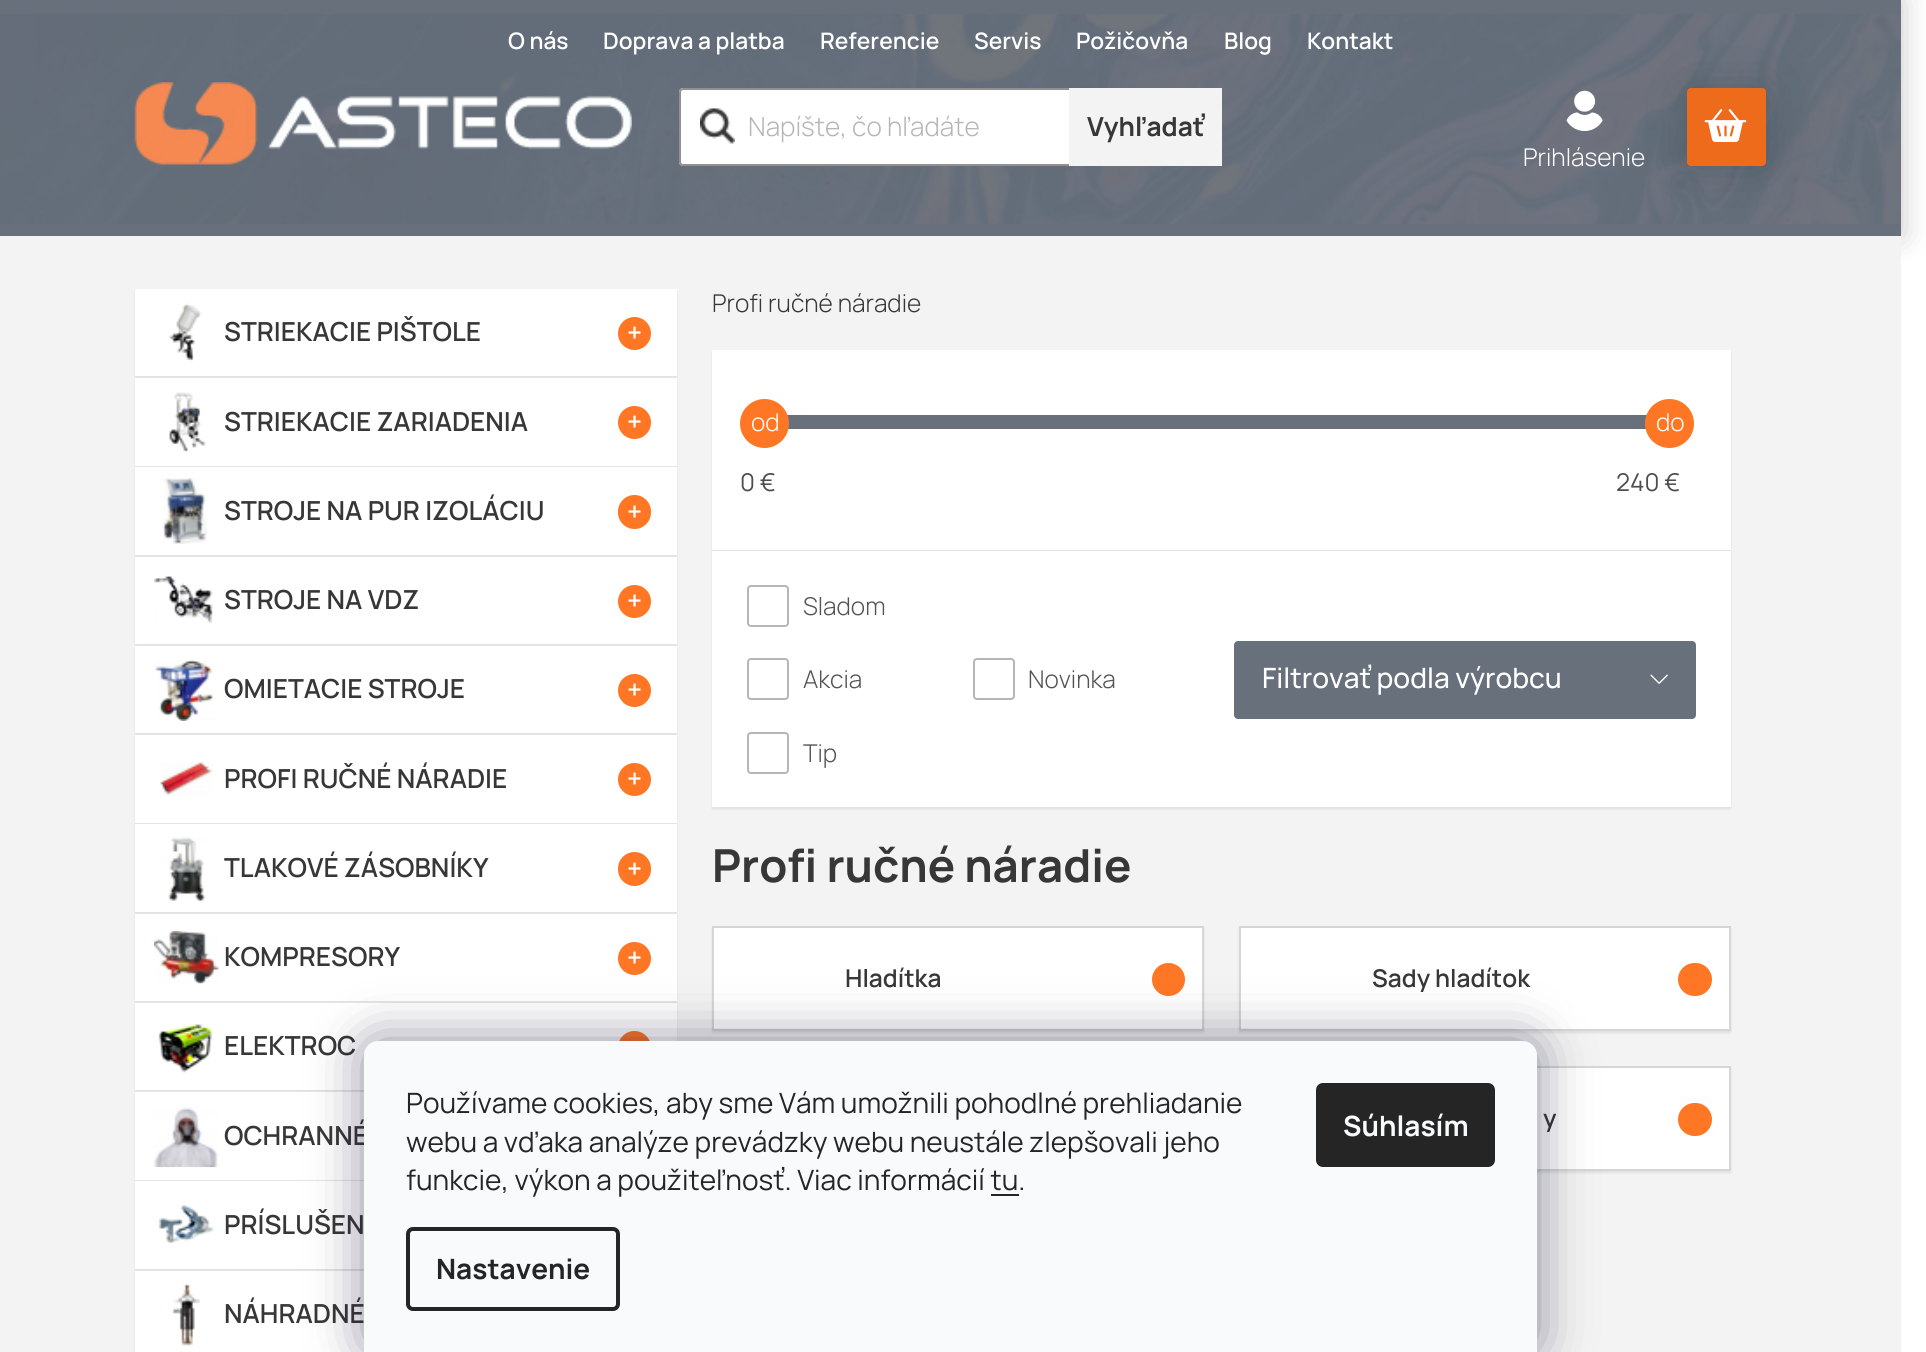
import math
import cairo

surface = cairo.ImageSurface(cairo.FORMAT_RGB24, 1926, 1352)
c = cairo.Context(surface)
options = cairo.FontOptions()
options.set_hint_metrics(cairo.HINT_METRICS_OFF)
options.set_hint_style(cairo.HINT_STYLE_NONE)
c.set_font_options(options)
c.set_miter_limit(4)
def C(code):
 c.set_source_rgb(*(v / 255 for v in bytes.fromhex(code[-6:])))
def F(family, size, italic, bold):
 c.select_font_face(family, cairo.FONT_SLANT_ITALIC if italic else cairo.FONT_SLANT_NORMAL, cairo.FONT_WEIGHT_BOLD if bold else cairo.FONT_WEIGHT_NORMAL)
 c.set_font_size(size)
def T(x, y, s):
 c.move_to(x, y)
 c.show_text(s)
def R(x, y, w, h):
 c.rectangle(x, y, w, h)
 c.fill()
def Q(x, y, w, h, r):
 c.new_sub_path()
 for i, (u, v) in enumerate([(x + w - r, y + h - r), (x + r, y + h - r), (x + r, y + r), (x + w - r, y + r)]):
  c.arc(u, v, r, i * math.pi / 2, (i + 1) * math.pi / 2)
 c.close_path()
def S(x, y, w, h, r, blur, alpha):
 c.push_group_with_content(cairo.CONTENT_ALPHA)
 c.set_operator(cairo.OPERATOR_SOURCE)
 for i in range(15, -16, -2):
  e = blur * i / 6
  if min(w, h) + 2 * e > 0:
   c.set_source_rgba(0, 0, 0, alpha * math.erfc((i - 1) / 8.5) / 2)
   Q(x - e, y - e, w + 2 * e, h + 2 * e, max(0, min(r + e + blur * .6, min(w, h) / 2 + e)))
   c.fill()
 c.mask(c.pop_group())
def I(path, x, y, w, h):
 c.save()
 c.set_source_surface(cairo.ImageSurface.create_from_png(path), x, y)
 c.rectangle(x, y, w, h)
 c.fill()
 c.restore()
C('ffffff')
c.paint()
C('000000')
S(0,0,1901,236,0,15,.23)
C('68707b')
R(0,0,1901,236)
I('1.png',0,14,1900,210)
F('Manrope SemiBold',22.75,0,0)
C('ffffff')
T(508,49,'O nás')
T(603,49,'Doprava a platba')
T(820,49,'Referencie')
T(974,49,'Servis')
T(1076,49,'Požičovňa')
T(1224,49,'Blog')
T(1307,49,'Kontakt')
I('2.png',134,82,498,83)
Q(679,88,543,78,4)
c.fill()
I('3.png',700,108,35,36)
Q(680,89,541,76,3)
C('919191')
c.stroke()
F('Manrope Light',26.25,0,0)
C('b6b6b6')
T(748,136,'Napíšte, čo hľadáte')
C('f3f3f3')
R(1069,88,153,78)
F('Manrope',26.25,0,1)
C('373737')
T(1087,136,'Vyhľadať')
I('4.png',1566,90,37,41)
F('Manrope Light',24.5,0,0)
C('ffffff')
T(1523,166,'Prihlásenie')
C('1f3d42')
S(1687,88,79,78,4,23,.33)
C('ee6b1b')
Q(1687,88,79,78,4)
c.fill()
I('5.png',1704,109,43,33)
C('f3f3f3')
R(0,236,1901,1116)
C('cdcdcd')
S(135,291,542,87,0,1,.5)
C('ffffff')
R(135,289,542,87)
I('6.png',169,303,33,59)
F('Manrope SemiBold',26.25,0,0)
C('373737')
T(224,341,'STRIEKACIE PIŠTOLE')
C('ff7725')
c.new_path()
c.arc(634.5,333.5,16.5,0,2 * math.pi)
c.fill()
C('ffffff')
T(627,342,'+')
C('cdcdcd')
S(135,380,542,87,0,1,.5)
C('ffffff')
R(135,378,542,88)
I('7.png',169,392,37,61)
C('373737')
T(224,431,'STRIEKACIE ZARIADENIA')
C('ff7725')
c.new_path()
c.arc(634.5,422.5,16.5,0,2 * math.pi)
c.fill()
C('ffffff')
T(627,431,'+')
C('cdcdcd')
S(135,469,542,88,0,1,.5)
C('ffffff')
R(135,467,542,88)
I('8.png',162,478,45,66)
C('373737')
T(224,520,'STROJE NA PUR IZOLÁCIU')
C('ff7725')
Q(618,495,33,34,16.5)
c.fill()
C('ffffff')
T(627,521,'+')
C('cdcdcd')
S(135,558,542,88,0,1,.5)
C('ffffff')
R(135,557,542,87)
I('9.png',154,576,59,47)
C('373737')
T(224,609,'STROJE NA VDZ')
C('ff7725')
c.new_path()
c.arc(634.5,601.5,16.5,0,2 * math.pi)
c.fill()
C('ffffff')
T(627,610,'+')
C('cdcdcd')
S(135,648,542,87,0,1,.5)
C('ffffff')
R(135,646,542,87)
I('10.png',155,659,59,62)
C('373737')
T(224,698,'OMIETACIE STROJE')
C('ff7725')
c.new_path()
c.arc(634.5,690.5,16.5,0,2 * math.pi)
c.fill()
C('ffffff')
T(627,699,'+')
C('cdcdcd')
S(135,737,542,87,0,1,.5)
C('ffffff')
R(135,735,542,88)
I('11.png',160,761,53,34)
C('373737')
T(224,788,'PROFI RUČNÉ NÁRADIE')
C('ff7725')
c.new_path()
c.arc(634.5,779.5,16.5,0,2 * math.pi)
c.fill()
C('ffffff')
T(627,788,'+')
C('cdcdcd')
S(135,826,542,88,0,1,.5)
C('ffffff')
R(135,824,542,88)
I('12.png',168,837,38,65)
C('373737')
T(224,877,'TLAKOVÉ ZÁSOBNÍKY')
C('ff7725')
Q(618,852,33,34,16.5)
c.fill()
C('ffffff')
T(627,878,'+')
C('cdcdcd')
S(135,915,542,88,0,1,.5)
C('ffffff')
R(135,914,542,87)
I('13.png',154,931,65,53)
C('373737')
T(224,966,'KOMPRESORY')
C('ff7725')
c.new_path()
c.arc(634.5,958.5,16.5,0,2 * math.pi)
c.fill()
C('ffffff')
T(627,967,'+')
C('cdcdcd')
S(135,1005,542,87,0,1,.5)
C('ffffff')
R(135,1003,542,87)
I('14.png',158,1024,55,49)
C('373737')
T(224,1055,'ELEKTROC')
C('ff7725')
c.new_path()
c.arc(634.5,1047.5,16.5,0,2 * math.pi)
c.fill()
C('cdcdcd')
S(135,1094,542,87,0,1,.5)
C('ffffff')
R(135,1092,229,88)
I('15.png',153,1107,65,61)
C('373737')
T(224,1145,'OCHRANNÉ')
C('cdcdcd')
S(135,1183,542,88,0,1,.5)
C('ffffff')
R(135,1181,229,88)
I('16.png',158,1205,56,38)
C('373737')
T(224,1234,'PRÍSLUŠEN')
C('cdcdcd')
S(135,1272,542,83,0,1,.5)
C('ffffff')
R(135,1271,229,81)
I('17.png',172,1283,28,63)
C('373737')
T(224,1323,'NÁHRADNÉ')
F('Manrope Light',24.5,0,0)
T(712,312,'Profi ručné náradie')
C('cdcdcd')
S(712,352,1019,457,0,1,.5)
C('ffffff')
R(712,350,1019,200)
C('e0e0e0')
R(712,550,1019,1)
C('68707b')
R(787,415,860,14)
C('ff7725')
c.arc(764.5,423.5,24.5,0,2 * math.pi)
c.fill()
C('ffffff')
T(751,431,'od')
C('ff7725')
c.new_path()
c.arc(1669.5,423.5,24.5,0,2 * math.pi)
c.fill()
C('ffffff')
T(1656,431,'do')
F('Manrope',24.5,0,0)
C('4d4d4d')
T(740,491,'0 €')
T(1616,491,'240 €')
C('ffffff')
R(712,551,1019,256)
Q(748,586,40,40,3)
C('b6b6b6')
c.stroke()
F('Manrope Light',24.5,0,0)
C('535353')
T(803,615,'Sladom')
Q(748,659,40,40,3)
C('b6b6b6')
c.stroke()
C('535353')
T(803,688,'Akcia')
Q(974,659,40,40,3)
C('b6b6b6')
c.stroke()
C('535353')
T(1028,688,'Novinka')
Q(748,733,40,40,3)
C('b6b6b6')
c.stroke()
C('535353')
T(803,762,'Tip')
C('68707b')
Q(1236,643,458,74,2)
c.fill_preserve()
c.set_line_width(4)
c.stroke()
F('Manrope Medium',28,0,0)
C('ffffff')
T(1262,688,'Filtrovať podla výrobcu')
I('18.png',1650,674,18,10)
F('Manrope',45.5,0,1)
C('373737')
T(712,882,'Profi ručné náradie')
C('cdcdcd')
S(712,928,492,105,0,1,.5)
C('ffffff')
c.rectangle(713,927,490,103)
c.fill_preserve()
C('d4d7d6')
c.set_line_width(2)
c.stroke()
F('Manrope SemiBold',24.5,0,0)
C('373737')
T(845,987,'Hladítka')
C('ff7725')
c.new_path()
c.arc(1168.5,979.5,16.5,0,2 * math.pi)
c.fill()
C('cdcdcd')
S(1239,928,492,105,0,1,.5)
C('ffffff')
c.rectangle(1240,927,490,103)
c.fill_preserve()
C('d4d7d6')
c.stroke()
c.save()
c.rectangle(1355,964,304,28)
c.clip()
C('373737')
T(1372,987,'Sady hladítok')
c.restore()
C('ff7725')
Q(1678,963,34,33,16.5)
c.fill()
C('cdcdcd')
S(1239,1068,492,105,0,1,.5)
C('ffffff')
R(1537,1068,192,101)
c.rectangle(1240,1067,490,103)
C('d4d7d6')
c.stroke()
c.save()
c.rectangle(1355,1104,304,28)
c.clip()
C('373737')
T(1543,1127,'y')
c.restore()
C('ff7725')
Q(1678,1103,34,33,16.5)
c.fill()
C('1b1939')
S(364,1041,1173,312,14,26,.5)
C('f8fafb')
c.new_path()
c.move_to(378,1041)
c.line_to(1523,1041)
c.curve_to(1530.5,1041,1537,1047.5,1537,1055)
c.line_to(1537,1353)
c.line_to(364,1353)
c.line_to(364,1055)
c.curve_to(364,1047.5,370.5,1041,378,1041)
c.close_path()
c.fill()
F('Manrope',28,0,0)
C('252525')
T(406,1113,'Používame cookies, aby sme Vám umožnili pohodlné prehliadanie')
T(406,1152,'webu a vďaka analýze prevádzky webu neustále zlepšovali jeho')
T(406,1190,'funkcie, výkon a použiteľnosť. Viac informácií tu.')
R(991,1194,28,2)
Q(408,1229,210,80,5)
c.set_line_width(4)
c.stroke()
F('Manrope',28,0,1)
T(436,1279,'Nastavenie')
Q(1316,1083,179,84,7)
c.fill()
C('f8fafb')
T(1343,1136,'Súhlasím')
surface.write_to_png('o.png')
